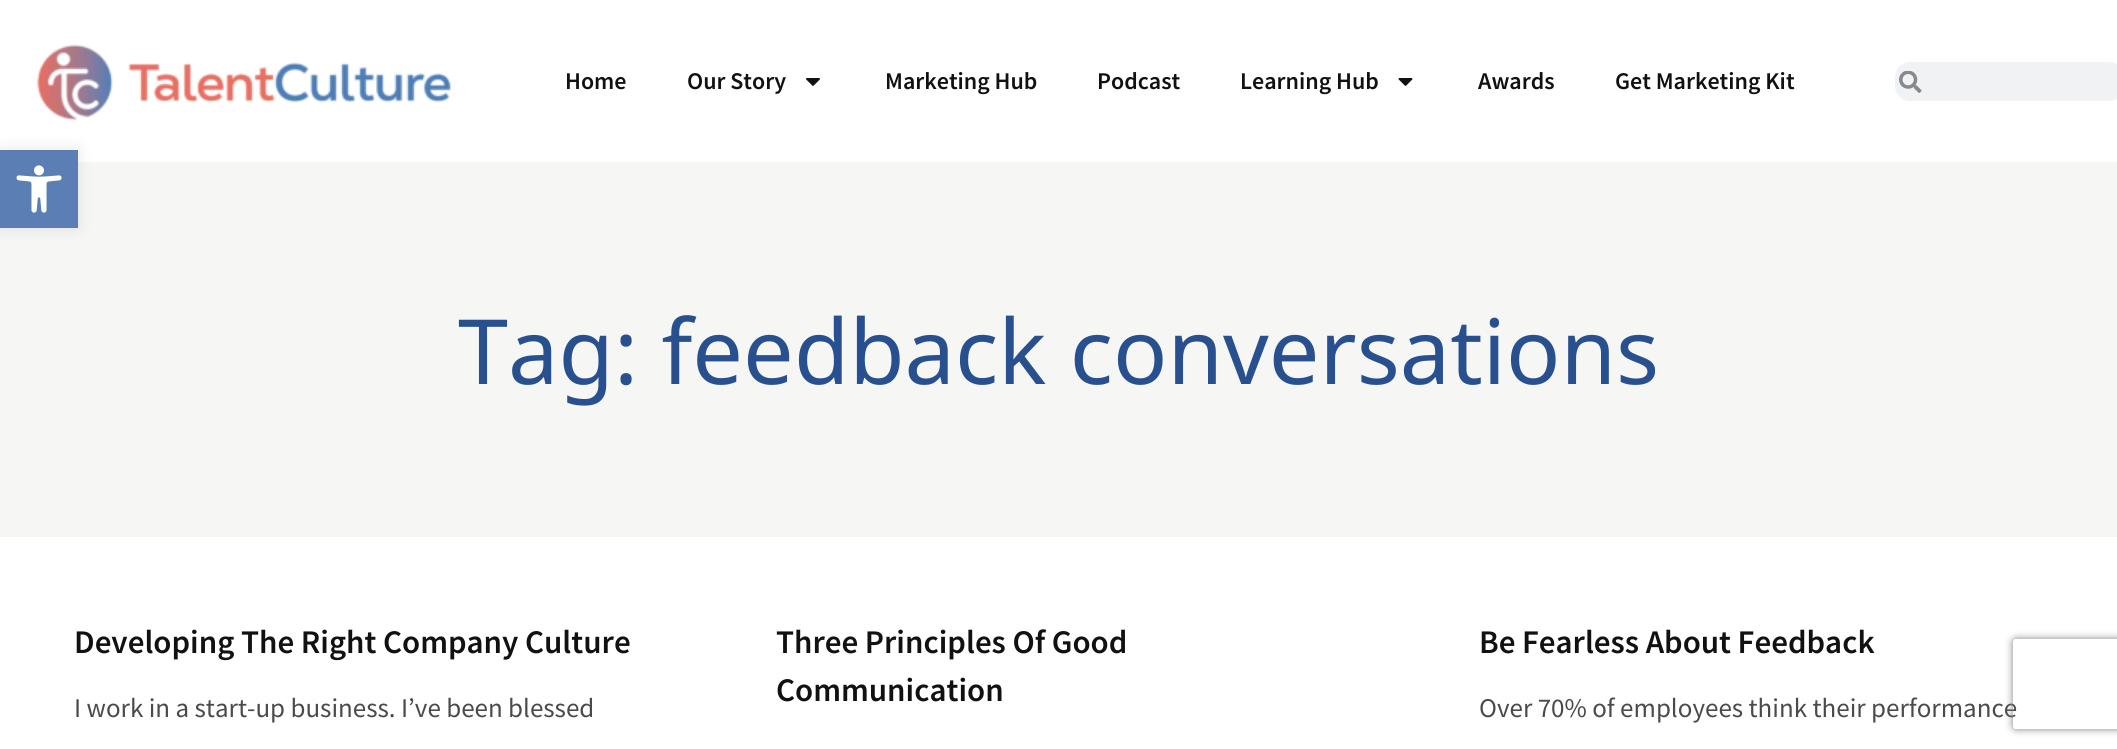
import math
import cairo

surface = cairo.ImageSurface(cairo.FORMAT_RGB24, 2117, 749)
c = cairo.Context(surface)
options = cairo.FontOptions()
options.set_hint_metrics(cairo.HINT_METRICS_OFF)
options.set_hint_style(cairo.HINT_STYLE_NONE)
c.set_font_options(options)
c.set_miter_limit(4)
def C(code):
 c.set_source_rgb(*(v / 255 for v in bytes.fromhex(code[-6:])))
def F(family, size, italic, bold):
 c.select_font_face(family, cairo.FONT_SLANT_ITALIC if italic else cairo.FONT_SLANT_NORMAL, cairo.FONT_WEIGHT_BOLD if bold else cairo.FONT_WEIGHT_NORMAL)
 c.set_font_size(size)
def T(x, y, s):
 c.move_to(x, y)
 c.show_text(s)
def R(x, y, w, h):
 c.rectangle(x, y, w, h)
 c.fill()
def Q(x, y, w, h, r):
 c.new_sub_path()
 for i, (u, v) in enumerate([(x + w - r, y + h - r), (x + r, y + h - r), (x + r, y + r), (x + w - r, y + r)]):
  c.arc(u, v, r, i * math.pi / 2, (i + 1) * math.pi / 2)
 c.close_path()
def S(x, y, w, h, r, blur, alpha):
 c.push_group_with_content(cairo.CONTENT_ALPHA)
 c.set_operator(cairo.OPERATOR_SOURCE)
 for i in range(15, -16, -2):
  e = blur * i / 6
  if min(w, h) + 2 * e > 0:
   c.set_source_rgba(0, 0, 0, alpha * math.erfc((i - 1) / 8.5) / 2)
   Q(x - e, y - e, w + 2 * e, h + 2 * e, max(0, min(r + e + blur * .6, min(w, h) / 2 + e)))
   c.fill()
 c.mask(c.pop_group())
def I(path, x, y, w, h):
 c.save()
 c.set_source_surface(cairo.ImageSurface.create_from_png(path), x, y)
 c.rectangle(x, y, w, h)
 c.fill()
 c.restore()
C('ffffff')
c.paint()
I('1.png',37,44,415,77)
F('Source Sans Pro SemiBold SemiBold',24,0,0)
C('111111')
T(565,89,'Home')
T(687,89,'Our Story')
I('2.png',806,78,14,8)
T(885,89,'Marketing Hub')
T(1097,89,'Podcast')
T(1240,89,'Learning Hub')
I('3.png',1398,78,15,8)
T(1478,89,'Awards')
T(1615,89,'Get Marketing Kit')
C('f1f2f3')
Q(1895,62,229,39,15)
c.fill()
I('4.png',1899,71,23,22)
C('f6f6f5')
R(0,162,2117,375)
C('000000')
S(0,150,78,78,0,7.5,.1)
C('5b7eb5')
R(0,150,78,78)
I('5.png',16,165,46,48)
F('Noto Sans',90,0,0)
C('28508e')
T(458,384,'Tag: feedback conversations')
F('Source Sans Pro SemiBold SemiBold',33,0,0)
C('111111')
T(74,653,'Developing The Right Company Culture')
F('Source Sans Pro',27,0,0)
C('4c4a49')
T(74,717,'I work in a start-up business. I’ve been blessed')
F('Source Sans Pro SemiBold SemiBold',33,0,0)
C('111111')
T(776,653,'Three Principles Of Good')
T(776,701,'Communication')
T(1479,653,'Be Fearless About Feedback')
F('Source Sans Pro',27,0,0)
C('4c4a49')
T(1479,717,'Over 70% of employees think their performance')
c.save()
c.set_fill_rule(cairo.FILL_RULE_EVEN_ODD)
c.new_path()
c.move_to(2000,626)
c.line_to(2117,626)
c.line_to(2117,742)
c.line_to(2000,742)
c.close_path()
c.move_to(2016,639)
c.line_to(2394,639)
c.curve_to(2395.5,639,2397,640.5,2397,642)
c.line_to(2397,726)
c.curve_to(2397,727.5,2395.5,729,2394,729)
c.line_to(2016,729)
c.curve_to(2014.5,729,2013,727.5,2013,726)
c.line_to(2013,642)
c.curve_to(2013,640.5,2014.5,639,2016,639)
c.close_path()
c.clip()
C('808080')
S(2013,639,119,90,3,4,1)
c.restore()
surface.write_to_png('o.png')
